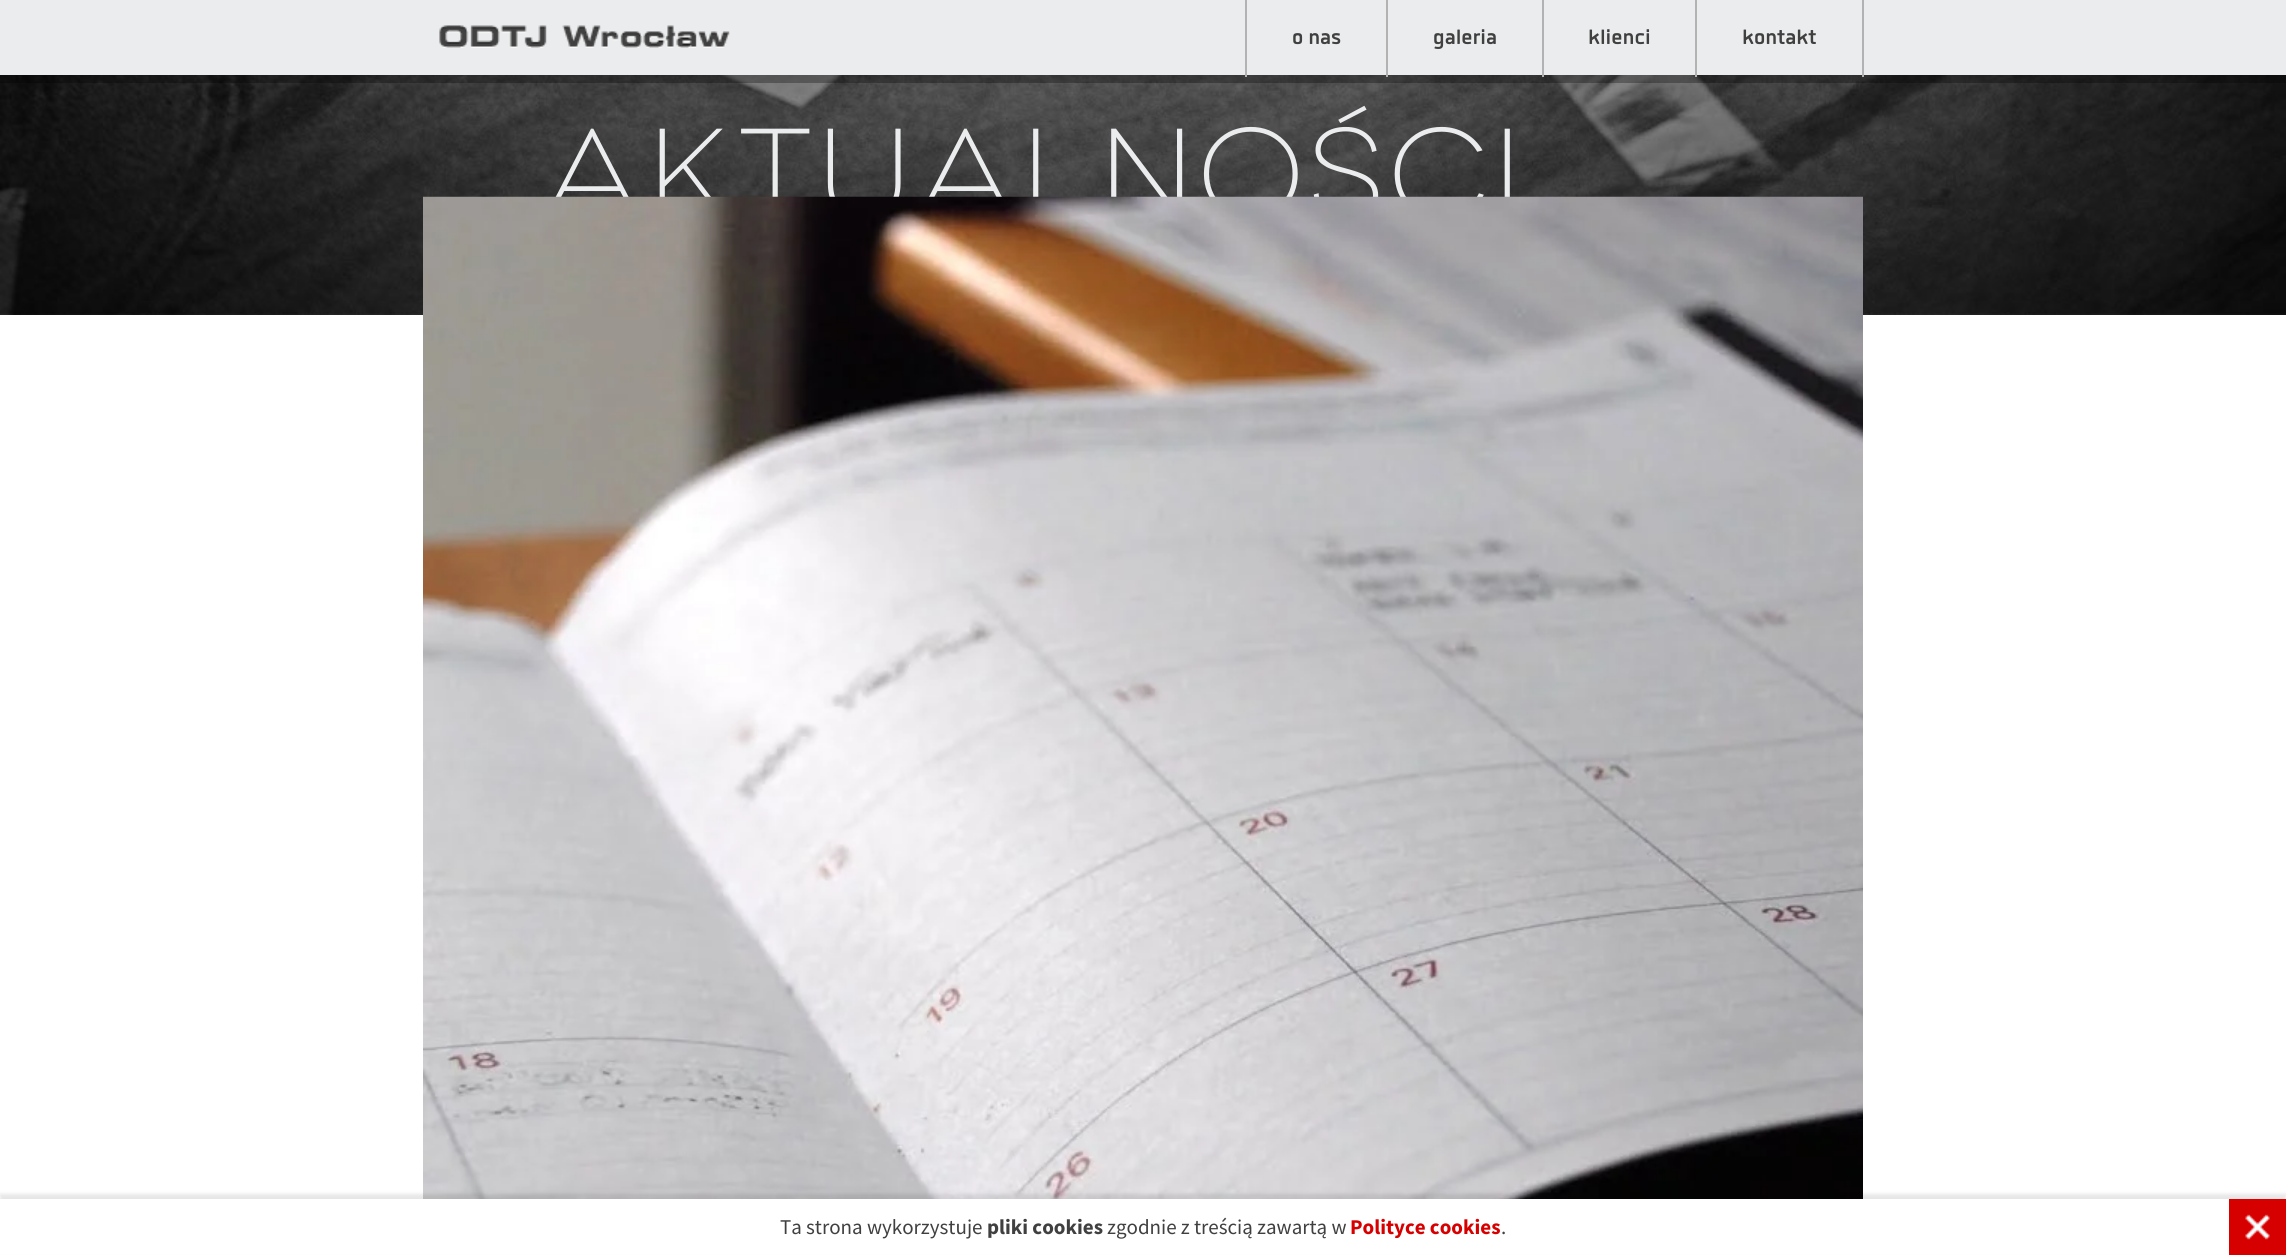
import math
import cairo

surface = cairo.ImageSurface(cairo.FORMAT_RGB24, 2286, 1255)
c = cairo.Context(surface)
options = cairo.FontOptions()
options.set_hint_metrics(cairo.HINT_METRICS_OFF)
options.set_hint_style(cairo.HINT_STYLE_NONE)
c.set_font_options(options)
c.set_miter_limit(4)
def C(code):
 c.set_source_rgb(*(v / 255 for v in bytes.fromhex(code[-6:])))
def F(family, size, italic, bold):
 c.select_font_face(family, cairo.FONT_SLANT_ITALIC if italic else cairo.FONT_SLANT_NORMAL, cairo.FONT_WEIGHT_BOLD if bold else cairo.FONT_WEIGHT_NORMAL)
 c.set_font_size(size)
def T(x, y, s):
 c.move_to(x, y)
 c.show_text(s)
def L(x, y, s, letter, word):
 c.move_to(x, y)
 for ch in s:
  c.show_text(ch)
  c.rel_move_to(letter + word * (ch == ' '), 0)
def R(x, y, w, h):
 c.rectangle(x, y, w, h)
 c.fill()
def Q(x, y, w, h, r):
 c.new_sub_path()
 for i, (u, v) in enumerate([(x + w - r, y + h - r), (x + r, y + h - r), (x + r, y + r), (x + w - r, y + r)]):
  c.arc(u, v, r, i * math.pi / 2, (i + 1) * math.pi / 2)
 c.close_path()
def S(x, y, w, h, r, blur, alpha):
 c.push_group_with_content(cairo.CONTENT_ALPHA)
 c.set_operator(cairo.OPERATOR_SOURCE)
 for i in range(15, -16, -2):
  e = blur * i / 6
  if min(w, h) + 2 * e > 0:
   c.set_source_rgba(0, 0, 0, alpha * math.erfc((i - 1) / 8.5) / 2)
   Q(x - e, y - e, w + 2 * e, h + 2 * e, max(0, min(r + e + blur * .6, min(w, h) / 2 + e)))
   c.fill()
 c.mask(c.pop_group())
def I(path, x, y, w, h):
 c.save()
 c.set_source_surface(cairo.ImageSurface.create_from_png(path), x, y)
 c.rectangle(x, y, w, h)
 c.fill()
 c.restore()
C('ffffff')
c.paint()
C('ebeced')
R(0,0,2286,75)
I('1.png',439,25,291,23)
I('2.png',0,75,2286,240)
c.set_source_rgba(0,0,0,0.3)
R(0,75,2286,8)
C('b2b2b2')
R(1386,0,2,77)
R(1245,0,2,77)
F('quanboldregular',27,0,0)
C('404040')
T(1292,44,'o nas')
C('b2b2b2')
R(1542,0,2,77)
C('404040')
T(1433,44,'galeria')
C('b2b2b2')
R(1695,0,2,77)
C('404040')
T(1588,44,'klienci')
C('b2b2b2')
R(1862,0,2,77)
C('404040')
T(1742,44,'kontakt')
F('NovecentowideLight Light',129,0,0)
C('ebeced')
L(542,219,'Aktualności',4.5,0)
I('3.png',423,196,1440,1003)
C('000000')
S(0,1194,2286,57,0,2,.1)
C('ffffff')
R(0,1199,2229,55)
F('Source Sans Pro',21,0,0)
C('404040')
T(780,1234,'Ta strona wykorzystuje')
F('Source Sans Pro',21,0,1)
T(987,1234,'pliki cookies')
F('Source Sans Pro',21,0,0)
T(1107,1234,'zgodnie z treścią zawartą w')
F('Source Sans Pro',21,0,1)
C('d70000')
T(1350,1234,'Polityce cookies')
F('Source Sans Pro',21,0,0)
C('404040')
T(1501,1234,'.')
C('d70000')
R(2229,1199,57,56)
I('4.png',2245,1214,25,26)
surface.write_to_png('o.png')
